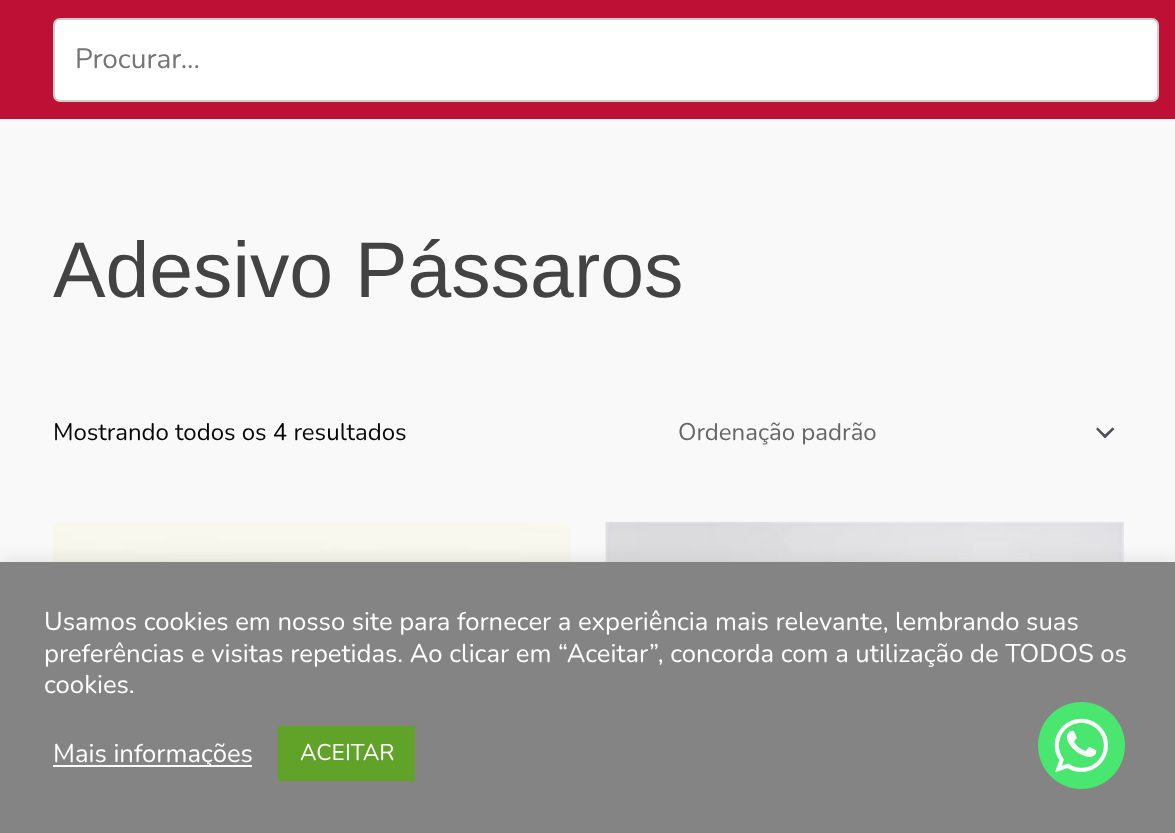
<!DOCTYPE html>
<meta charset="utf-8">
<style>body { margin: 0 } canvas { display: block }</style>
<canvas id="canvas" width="1175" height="833"></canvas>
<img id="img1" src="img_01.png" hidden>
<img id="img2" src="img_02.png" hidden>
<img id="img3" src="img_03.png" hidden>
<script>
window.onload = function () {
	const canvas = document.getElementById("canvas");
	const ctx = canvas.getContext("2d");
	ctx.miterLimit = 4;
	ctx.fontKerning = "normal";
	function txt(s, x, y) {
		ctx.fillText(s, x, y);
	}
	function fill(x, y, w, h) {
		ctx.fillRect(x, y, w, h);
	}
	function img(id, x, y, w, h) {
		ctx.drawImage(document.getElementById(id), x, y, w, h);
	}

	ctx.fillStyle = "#F9F9F9";
	fill(0, 0, 1175, 833);
	ctx.fillStyle = "#BE0F34";
	fill(0, 0, 1175, 119);
	ctx.fillStyle = "#FFFFFF";
	ctx.beginPath();
	ctx.roundRect(54, 19, 1104, 82, 6);
	ctx.fill();
	ctx.strokeStyle = "#CECECE";
	ctx.lineWidth = 2;
	ctx.stroke();
	ctx.fillStyle = "#4B4F58";
	ctx.beginPath();
	ctx.moveTo(1096, 429);
	ctx.lineTo(1105, 438.5);
	ctx.lineTo(1114.5, 429);
	ctx.lineTo(1112.5, 427.5);
	ctx.lineTo(1105, 434.5);
	ctx.lineTo(1097.5, 427.5);
	ctx.closePath();
	ctx.fill();
	img("img1", 53, 522, 518, 40);
	img("img2", 605, 521, 519, 41);
	ctx.fillStyle = "rgba(172, 171, 171, 0.3)";
	ctx.filter = "blur(9px)";
	ctx.beginPath();
	ctx.rect(0, 560, 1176, 271);
	ctx.fill();
	ctx.filter = "none";
	ctx.fillStyle = "#848484";
	fill(0, 562, 1175, 271);
	ctx.fillStyle = "#FFFFFF";
	fill(53, 765, 199, 2);
	ctx.fillStyle = "#61A229";
	fill(278, 726, 137, 55);
	img("img3", 1038, 702, 87, 87);
	ctx.font = "200 28px Nunito";
	ctx.fillStyle = "#757575";
	txt("Procurar...", 75, 68);
	ctx.font = "78.75px Liberation Sans";
	ctx.fillStyle = "#434343";
	txt("Adesivo Pássaros", 53, 297);
	ctx.font = "200 24px Nunito";
	ctx.fillStyle = "#070707";
	txt("Mostrando todos os 4 resultados", 53, 440);
	ctx.fillStyle = "#666666";
	txt("Ordenação padrão", 678, 440);
	ctx.font = "200 25.65px Nunito";
	ctx.fillStyle = "#FFFFFF";
	txt("Usamos cookies em nosso site para fornecer a experiência mais relevante, lembrando suas", 44, 630);
	txt("preferências e visitas repetidas. Ao clicar em “Aceitar”, concorda com a utilização de TODOS os", 44, 662);
	txt("cookies.", 44, 693);
	txt("Mais informações", 53, 762);
	ctx.font = "200 22.75px Nunito";
	txt("ACEITAR", 300, 760);
};
</script>
